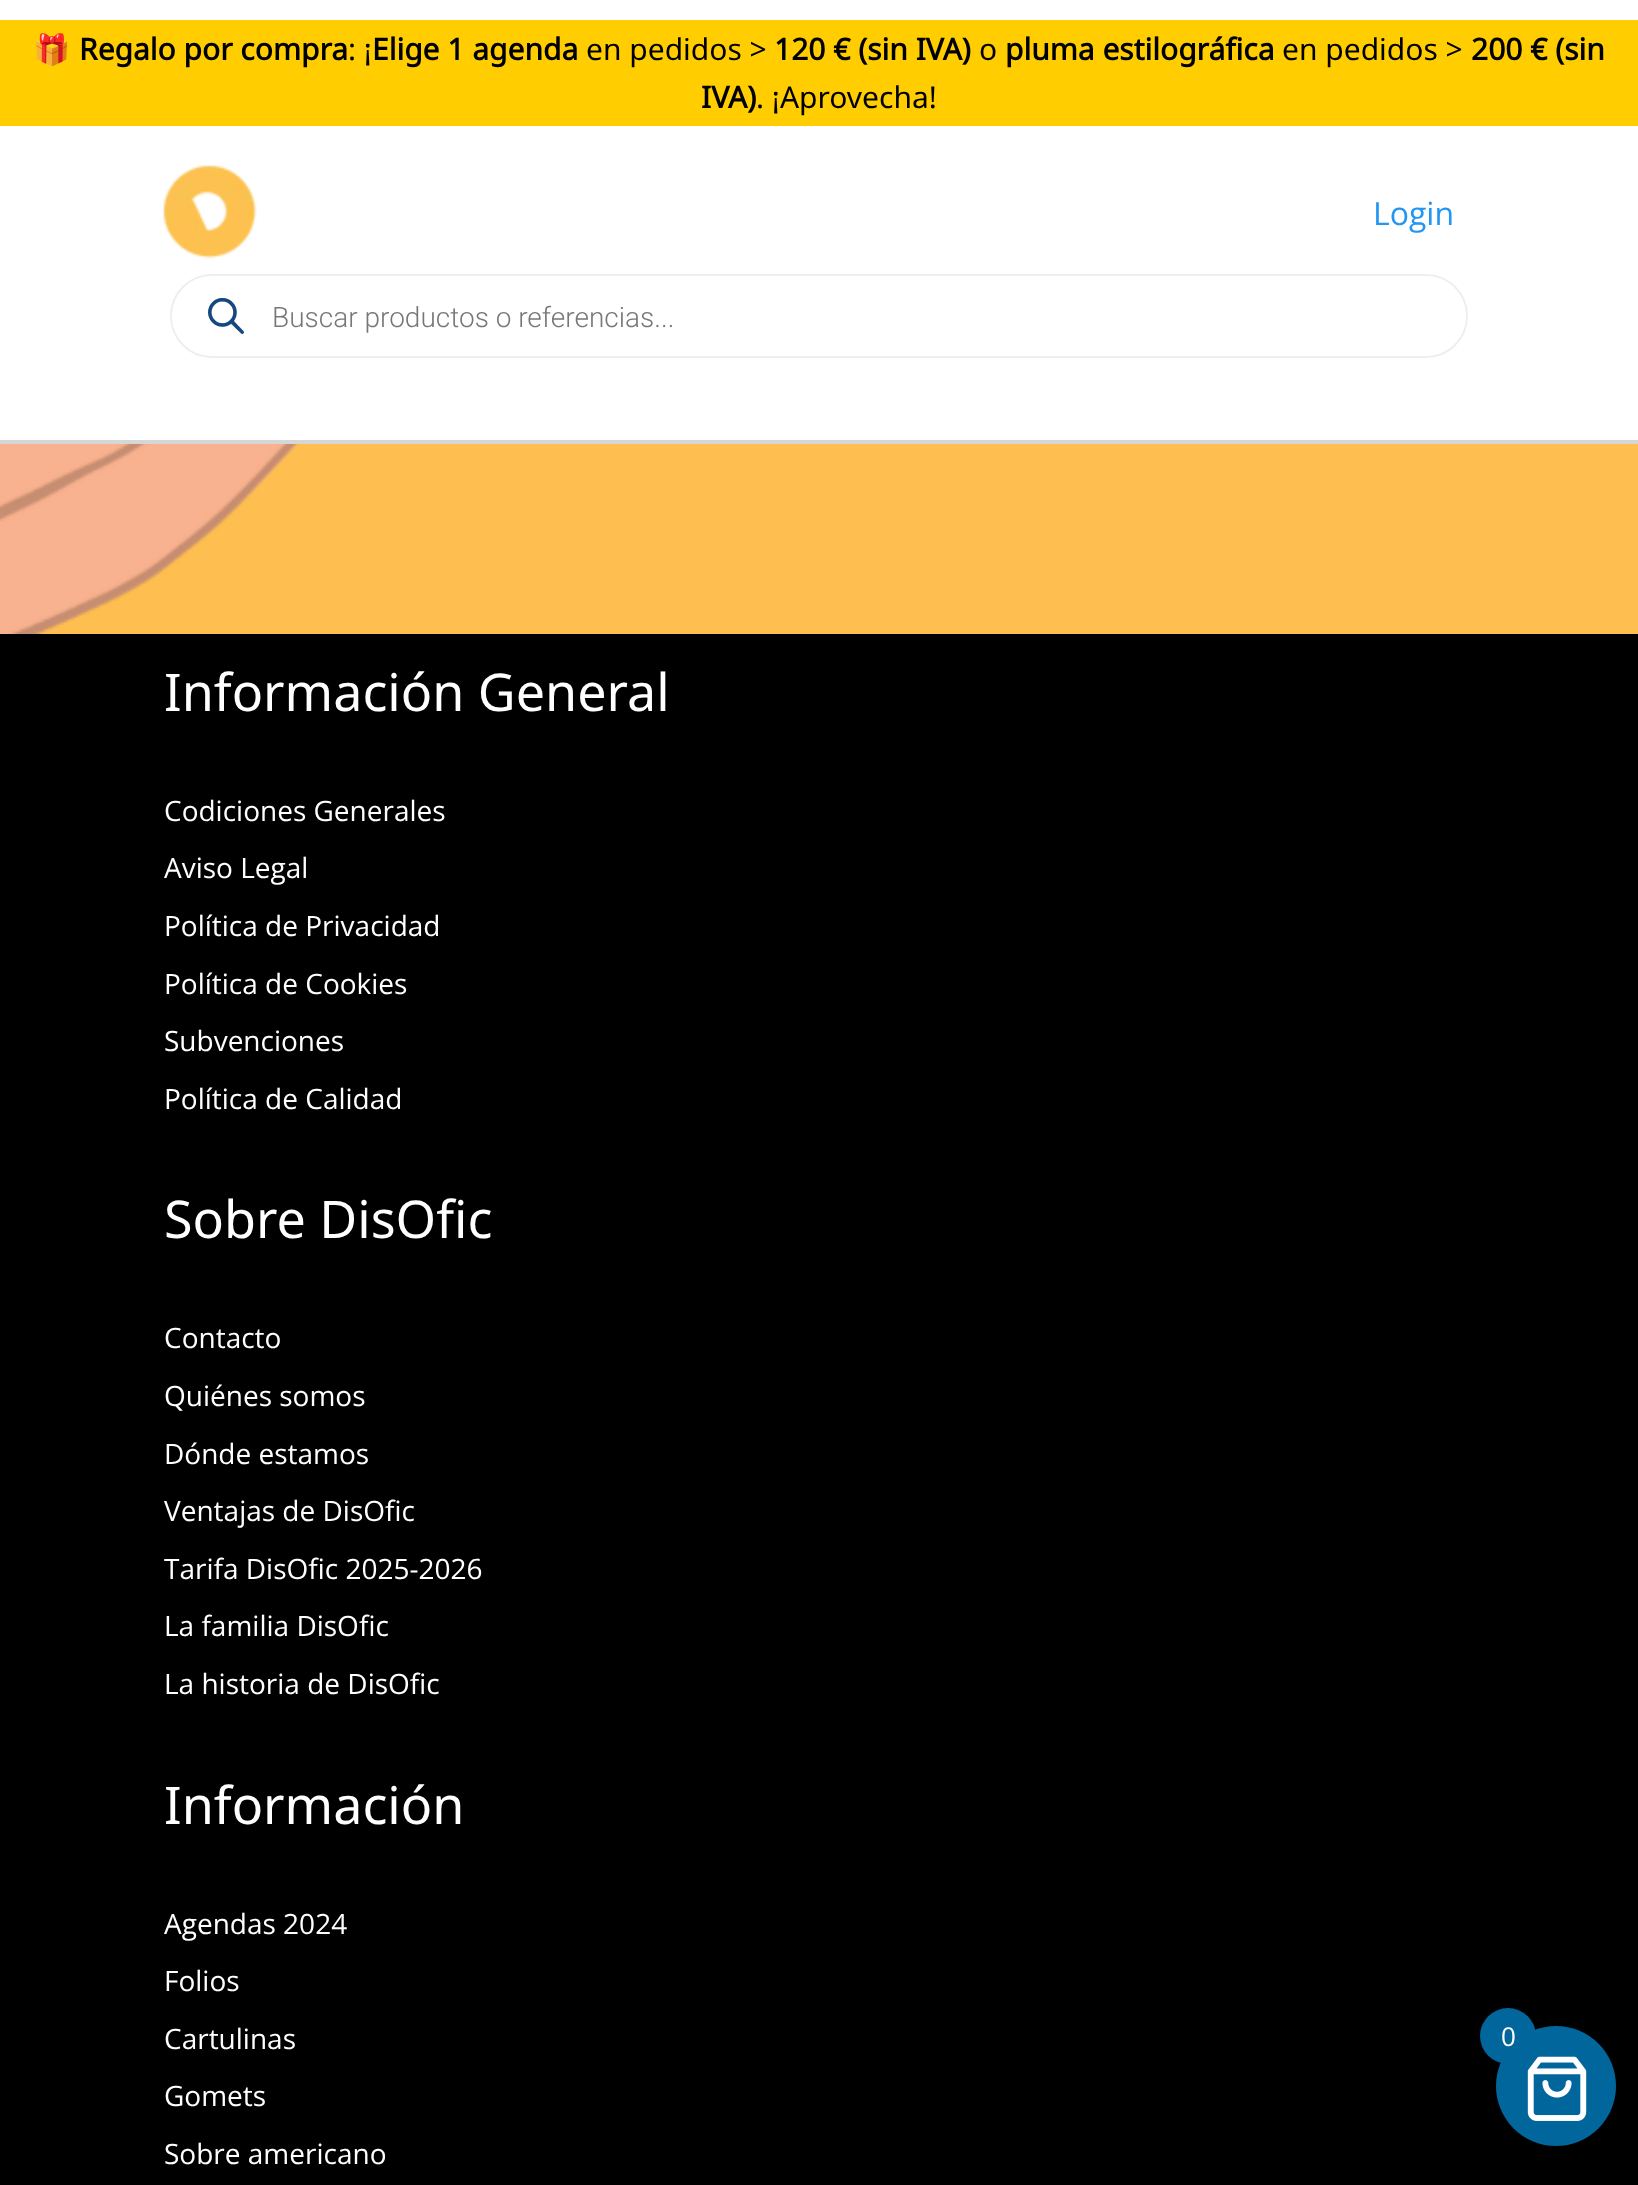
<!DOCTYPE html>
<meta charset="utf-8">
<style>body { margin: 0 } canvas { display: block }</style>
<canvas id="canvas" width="1638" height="2185"></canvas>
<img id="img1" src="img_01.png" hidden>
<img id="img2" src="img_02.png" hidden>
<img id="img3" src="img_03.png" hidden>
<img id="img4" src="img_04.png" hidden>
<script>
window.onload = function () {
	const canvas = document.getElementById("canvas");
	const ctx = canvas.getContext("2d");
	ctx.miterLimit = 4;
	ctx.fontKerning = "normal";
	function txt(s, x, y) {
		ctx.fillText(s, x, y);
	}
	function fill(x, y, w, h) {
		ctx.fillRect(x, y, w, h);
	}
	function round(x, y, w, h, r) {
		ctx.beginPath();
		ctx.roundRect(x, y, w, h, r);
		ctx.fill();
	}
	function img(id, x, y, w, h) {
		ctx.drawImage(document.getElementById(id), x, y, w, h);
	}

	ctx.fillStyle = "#FEBF50";
	fill(0, 0, 1638, 2185);
	ctx.fillStyle = "#FFFFFF";
	fill(0, 0, 1638, 440);
	ctx.fillStyle = "#D6D6D6";
	fill(0, 440, 1638, 4);
	ctx.fillStyle = "#FFCD00";
	fill(0, 20, 1638, 106);
	img("img1", 163, 165, 94, 94);
	ctx.beginPath();
	ctx.roundRect(171, 275, 1296, 82, 41);
	ctx.strokeStyle = "#EEEEEE";
	ctx.lineWidth = 2;
	ctx.stroke();
	ctx.fillStyle = "#FFFFFF";
	round(172, 276, 1294, 80, 40);
	img("img2", 208, 298, 36, 36);
	img("img3", 0, 444, 478, 190);
	ctx.fillStyle = "#000000";
	fill(0, 634, 1638, 1551);
	ctx.fillStyle = "#00669C";
	ctx.beginPath();
	ctx.arc(1556, 2086, 60, 0, Math.PI * 2);
	ctx.fill();
	img("img4", 1527, 2056, 60, 65);
	ctx.beginPath();
	ctx.arc(1508, 2036, 28, 0, Math.PI * 2);
	ctx.fill();
	ctx.font = "30px Noto Color Emoji";
	ctx.fillStyle = "#000000";
	txt("🎁", 33, 60);
	ctx.font = "bold 30px Noto Sans Mongolian";
	txt("Regalo por compra", 79, 60);
	ctx.font = "30px Noto Sans Mongolian";
	txt(": ¡", 348, 60);
	ctx.font = "bold 30px Noto Sans Mongolian";
	txt("Elige 1 agenda", 372, 60);
	ctx.font = "30px Noto Sans Mongolian";
	txt("en pedidos >", 586, 60);
	ctx.font = "bold 30px Noto Sans Mongolian";
	txt("120 € (sin IVA)", 774, 60);
	ctx.font = "30px Noto Sans Mongolian";
	txt("o", 979, 60);
	ctx.font = "bold 30px Noto Sans Mongolian";
	txt("pluma estilográfica", 1005, 60);
	ctx.font = "30px Noto Sans Mongolian";
	txt("en pedidos >", 1282, 60);
	ctx.font = "bold 30px Noto Sans Mongolian";
	txt("200 € (sin", 1471, 60);
	txt("IVA)", 701, 108);
	ctx.font = "30px Noto Sans Mongolian";
	txt(". ¡Aprovecha!", 756, 108);
	ctx.font = "32px Open Sans";
	ctx.fillStyle = "#2196F3";
	txt("Login", 1373, 225);
	ctx.font = "300 28px Roboto";
	ctx.fillStyle = "#777777";
	txt("Buscar productos o referencias...", 272, 327);
	ctx.font = "52px Noto Sans Mongolian";
	ctx.fillStyle = "#FFFFFF";
	txt("Información General", 164, 711);
	ctx.font = "28px Open Sans";
	txt("Codiciones Generales", 164, 821);
	txt("Aviso Legal", 164, 878);
	txt("Política de Privacidad", 164, 936);
	txt("Política de Cookies", 164, 994);
	txt("Subvenciones", 164, 1051);
	txt("Política de Calidad", 164, 1109);
	ctx.font = "52px Noto Sans Mongolian";
	txt("Sobre DisOfic", 164, 1238);
	ctx.font = "28px Open Sans";
	txt("Contacto", 164, 1348);
	txt("Quiénes somos", 164, 1406);
	txt("Dónde estamos", 164, 1464);
	txt("Ventajas de DisOfic", 164, 1521);
	txt("Tarifa DisOfic 2025-2026", 164, 1579);
	txt("La familia DisOfic", 164, 1636);
	txt("La historia de DisOfic", 164, 1694);
	ctx.font = "52px Noto Sans Mongolian";
	txt("Información", 164, 1824);
	ctx.font = "28px Open Sans";
	txt("Agendas 2024", 164, 1934);
	txt("Folios", 164, 1991);
	txt("Cartulinas", 164, 2049);
	txt("Gomets", 164, 2106);
	txt("Sobre americano", 164, 2164);
	ctx.font = "26px Open Sans";
	txt("0", 1501, 2046);
};
</script>
